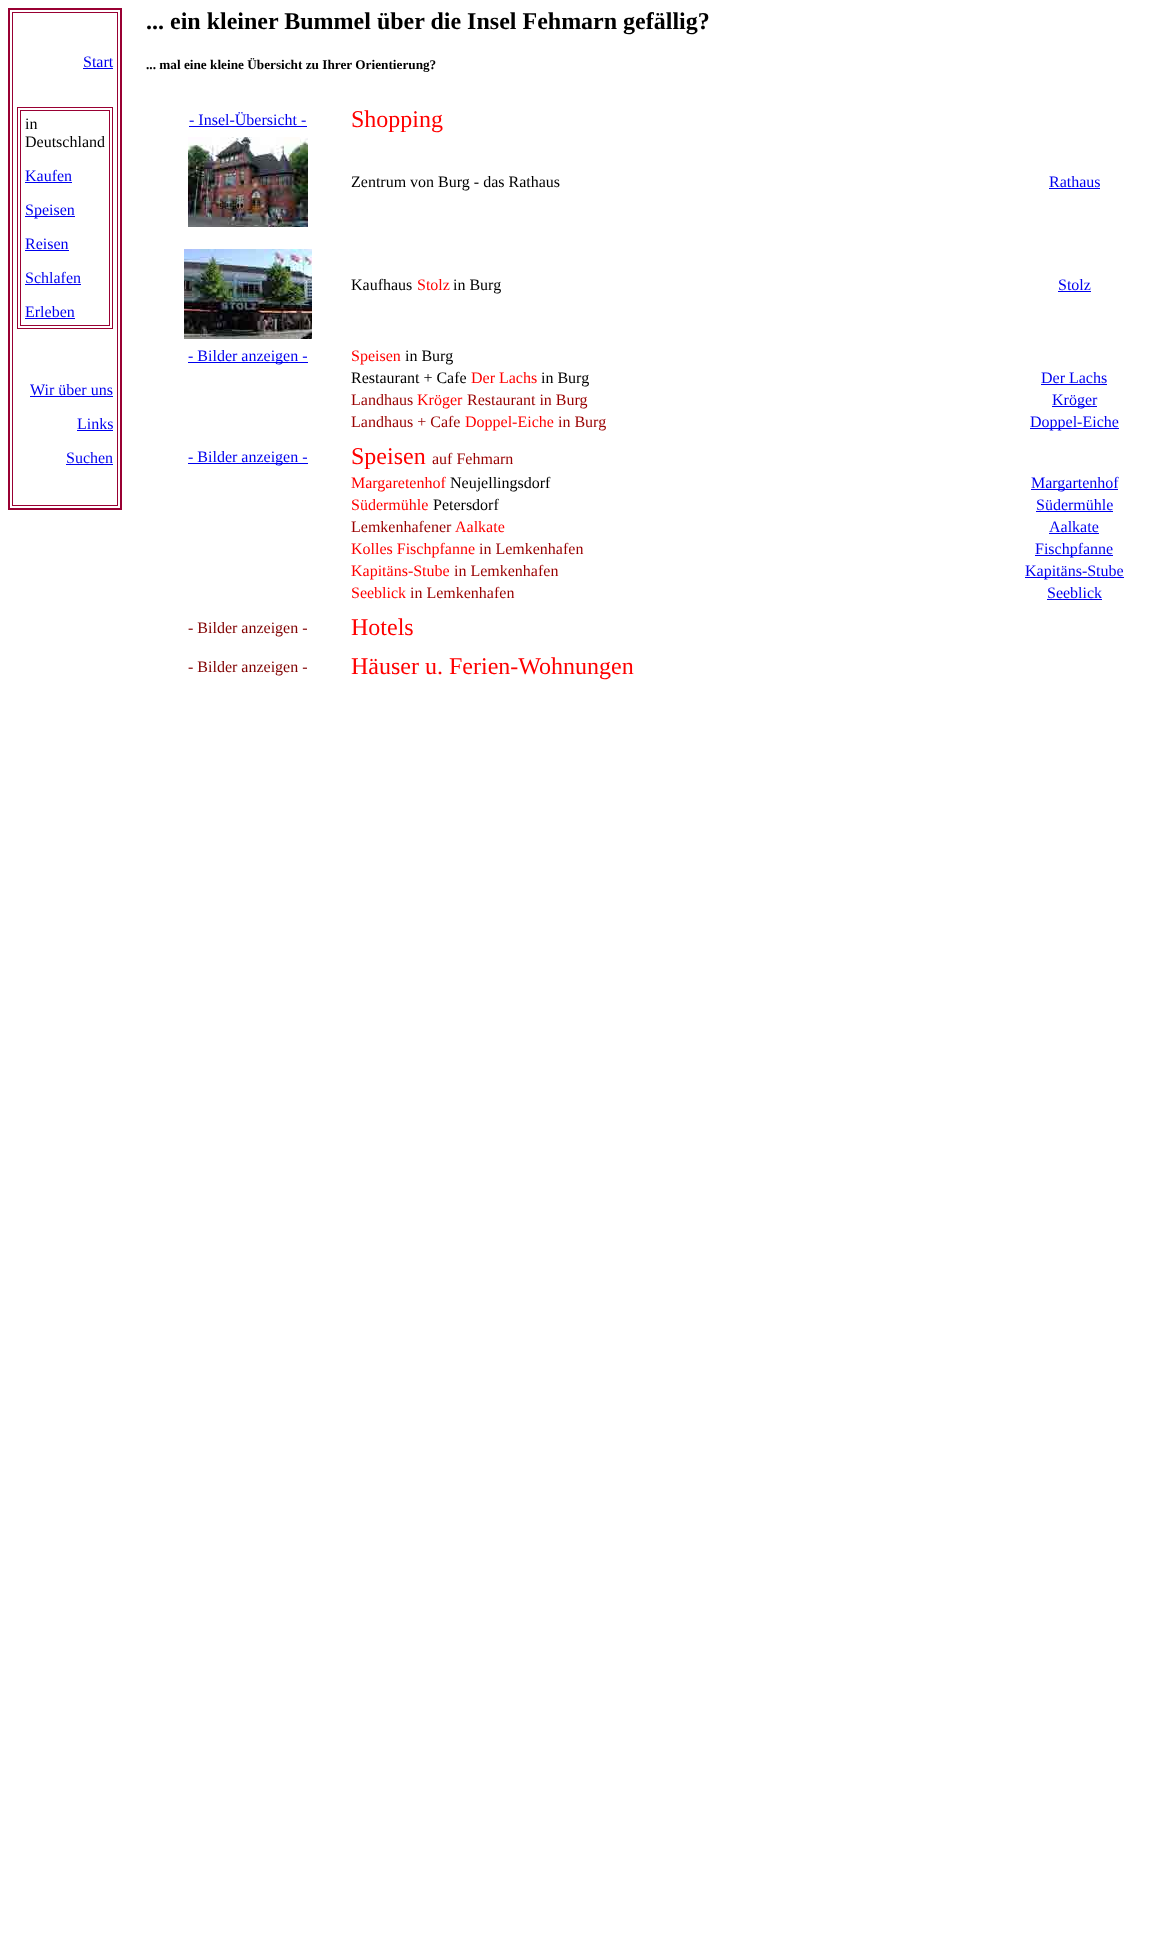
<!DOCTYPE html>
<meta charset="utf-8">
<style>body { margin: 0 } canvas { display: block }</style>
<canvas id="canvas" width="1175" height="1943"></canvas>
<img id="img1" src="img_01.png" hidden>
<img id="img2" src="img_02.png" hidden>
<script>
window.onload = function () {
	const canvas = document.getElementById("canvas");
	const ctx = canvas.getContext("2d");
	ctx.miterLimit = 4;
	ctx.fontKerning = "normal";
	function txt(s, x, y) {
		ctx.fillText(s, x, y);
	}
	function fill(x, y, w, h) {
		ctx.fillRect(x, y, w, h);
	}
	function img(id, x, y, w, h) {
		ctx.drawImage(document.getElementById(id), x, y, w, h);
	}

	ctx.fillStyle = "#FFFFFF";
	fill(0, 0, 1175, 1943);
	ctx.strokeStyle = "#990033";
	ctx.lineWidth = 2;
	ctx.strokeRect(9, 9, 112, 500);
	ctx.lineWidth = 1;
	ctx.strokeRect(12.5, 12.5, 105, 493);
	ctx.fillStyle = "#0000EE";
	fill(83, 68, 30, 1);
	ctx.strokeRect(17.5, 107.5, 95, 221);
	ctx.strokeRect(20.5, 110.5, 89, 215);
	fill(25, 182, 47, 1);
	fill(25, 216, 50, 1);
	fill(25, 250, 44, 1);
	fill(25, 284, 56, 1);
	fill(25, 318, 50, 1);
	fill(30, 396, 83, 1);
	fill(77, 430, 36, 1);
	fill(66, 464, 47, 1);
	fill(189, 126, 118, 1);
	img("img1", 188, 137, 120, 90);
	fill(1049, 188, 51, 1);
	img("img2", 184, 249, 128, 90);
	fill(1058, 291, 33, 1);
	fill(188, 362, 120, 1);
	fill(1041, 384, 66, 1);
	fill(1052, 406, 45, 1);
	fill(1030, 428, 89, 1);
	fill(188, 463, 120, 1);
	fill(1031, 489, 87, 1);
	fill(1036, 511, 77, 1);
	fill(1049, 533, 50, 1);
	fill(1035, 555, 78, 1);
	fill(1025, 577, 99, 1);
	fill(1047, 599, 55, 1);
	ctx.font = "16px Liberation Serif";
	txt("Start", 83, 67);
	ctx.fillStyle = "#000000";
	txt("in", 25, 129);
	txt("Deutschland", 25, 147);
	ctx.fillStyle = "#0000EE";
	txt("Kaufen", 25, 181);
	txt("Speisen", 25, 215);
	txt("Reisen", 25, 249);
	txt("Schlafen", 25, 283);
	txt("Erleben", 25, 317);
	txt("Wir über uns", 30, 395);
	txt("Links", 77, 429);
	txt("Suchen", 66, 463);
	ctx.font = "bold 24px Liberation Serif";
	ctx.fillStyle = "#000000";
	txt("... ein kleiner Bummel über die Insel Fehmarn gefällig?", 146, 29);
	ctx.font = "bold 13.25px Liberation Serif";
	txt("... mal eine kleine Übersicht zu Ihrer Orientierung?", 146, 69);
	ctx.font = "16px Liberation Serif";
	ctx.fillStyle = "#0000EE";
	txt("- Insel-Übersicht -", 189, 125);
	ctx.font = "24px Liberation Serif";
	ctx.fillStyle = "#FF0000";
	txt("Shopping", 351, 127);
	ctx.font = "16px Liberation Serif";
	ctx.fillStyle = "#000000";
	txt("Zentrum von Burg - das Rathaus", 351, 187);
	ctx.fillStyle = "#0000EE";
	txt("Rathaus", 1049, 187);
	ctx.fillStyle = "#000000";
	txt("Kaufhaus", 351, 290);
	ctx.fillStyle = "#FF0000";
	txt("Stolz", 417, 290);
	ctx.fillStyle = "#000000";
	txt("in Burg", 453, 290);
	ctx.fillStyle = "#0000EE";
	txt("Stolz", 1058, 290);
	txt("- Bilder anzeigen -", 188, 361);
	ctx.fillStyle = "#FF0000";
	txt("Speisen", 351, 361);
	ctx.fillStyle = "#000000";
	txt("in Burg", 405, 361);
	txt("Restaurant + Cafe", 351, 383);
	ctx.fillStyle = "#FF0000";
	txt("Der Lachs", 471, 383);
	ctx.fillStyle = "#000000";
	txt("in Burg", 541, 383);
	ctx.fillStyle = "#0000EE";
	txt("Der Lachs", 1041, 383);
	ctx.fillStyle = "#990000";
	txt("Landhaus", 351, 405);
	ctx.fillStyle = "#FF0000";
	txt("Kröger", 417, 405);
	ctx.fillStyle = "#990000";
	txt("Restaurant in Burg", 467, 405);
	ctx.fillStyle = "#0000EE";
	txt("Kröger", 1052, 405);
	ctx.fillStyle = "#990000";
	txt("Landhaus + Cafe", 351, 427);
	ctx.fillStyle = "#FF0000";
	txt("Doppel-Eiche", 465, 427);
	ctx.fillStyle = "#990000";
	txt("in Burg", 558, 427);
	ctx.fillStyle = "#0000EE";
	txt("Doppel-Eiche", 1030, 427);
	txt("- Bilder anzeigen -", 188, 462);
	ctx.font = "24px Liberation Serif";
	ctx.fillStyle = "#FF0000";
	txt("Speisen", 351, 464);
	ctx.font = "16px Liberation Serif";
	ctx.fillStyle = "#990000";
	txt("auf Fehmarn", 432, 464);
	ctx.fillStyle = "#FF0000";
	txt("Margaretenhof", 351, 488);
	ctx.fillStyle = "#000000";
	txt("Neujellingsdorf", 450, 488);
	ctx.fillStyle = "#0000EE";
	txt("Margartenhof", 1031, 488);
	ctx.fillStyle = "#FF0000";
	txt("Südermühle", 351, 510);
	ctx.fillStyle = "#000000";
	txt("Petersdorf", 433, 510);
	ctx.fillStyle = "#0000EE";
	txt("Südermühle", 1036, 510);
	ctx.fillStyle = "#990000";
	txt("Lemkenhafener", 351, 532);
	ctx.fillStyle = "#FF0000";
	txt("Aalkate", 455, 532);
	ctx.fillStyle = "#0000EE";
	txt("Aalkate", 1049, 532);
	ctx.fillStyle = "#FF0000";
	txt("Kolles Fischpfanne", 351, 554);
	ctx.fillStyle = "#990000";
	txt("in Lemkenhafen", 479, 554);
	ctx.fillStyle = "#0000EE";
	txt("Fischpfanne", 1035, 554);
	ctx.fillStyle = "#FF0000";
	txt("Kapitäns-Stube", 351, 576);
	ctx.fillStyle = "#990000";
	txt("in Lemkenhafen", 454, 576);
	ctx.fillStyle = "#0000EE";
	txt("Kapitäns-Stube", 1025, 576);
	ctx.fillStyle = "#FF0000";
	txt("Seeblick", 351, 598);
	ctx.fillStyle = "#990000";
	txt("in Lemkenhafen", 410, 598);
	ctx.fillStyle = "#0000EE";
	txt("Seeblick", 1047, 598);
	ctx.fillStyle = "#800000";
	txt("- Bilder anzeigen -", 188, 633);
	ctx.font = "24px Liberation Serif";
	ctx.fillStyle = "#FF0000";
	txt("Hotels", 351, 635);
	ctx.font = "16px Liberation Serif";
	ctx.fillStyle = "#800000";
	txt("- Bilder anzeigen -", 188, 672);
	ctx.font = "24px Liberation Serif";
	ctx.fillStyle = "#FF0000";
	txt("Häuser u. Ferien-Wohnungen", 351, 674);
};
</script>
